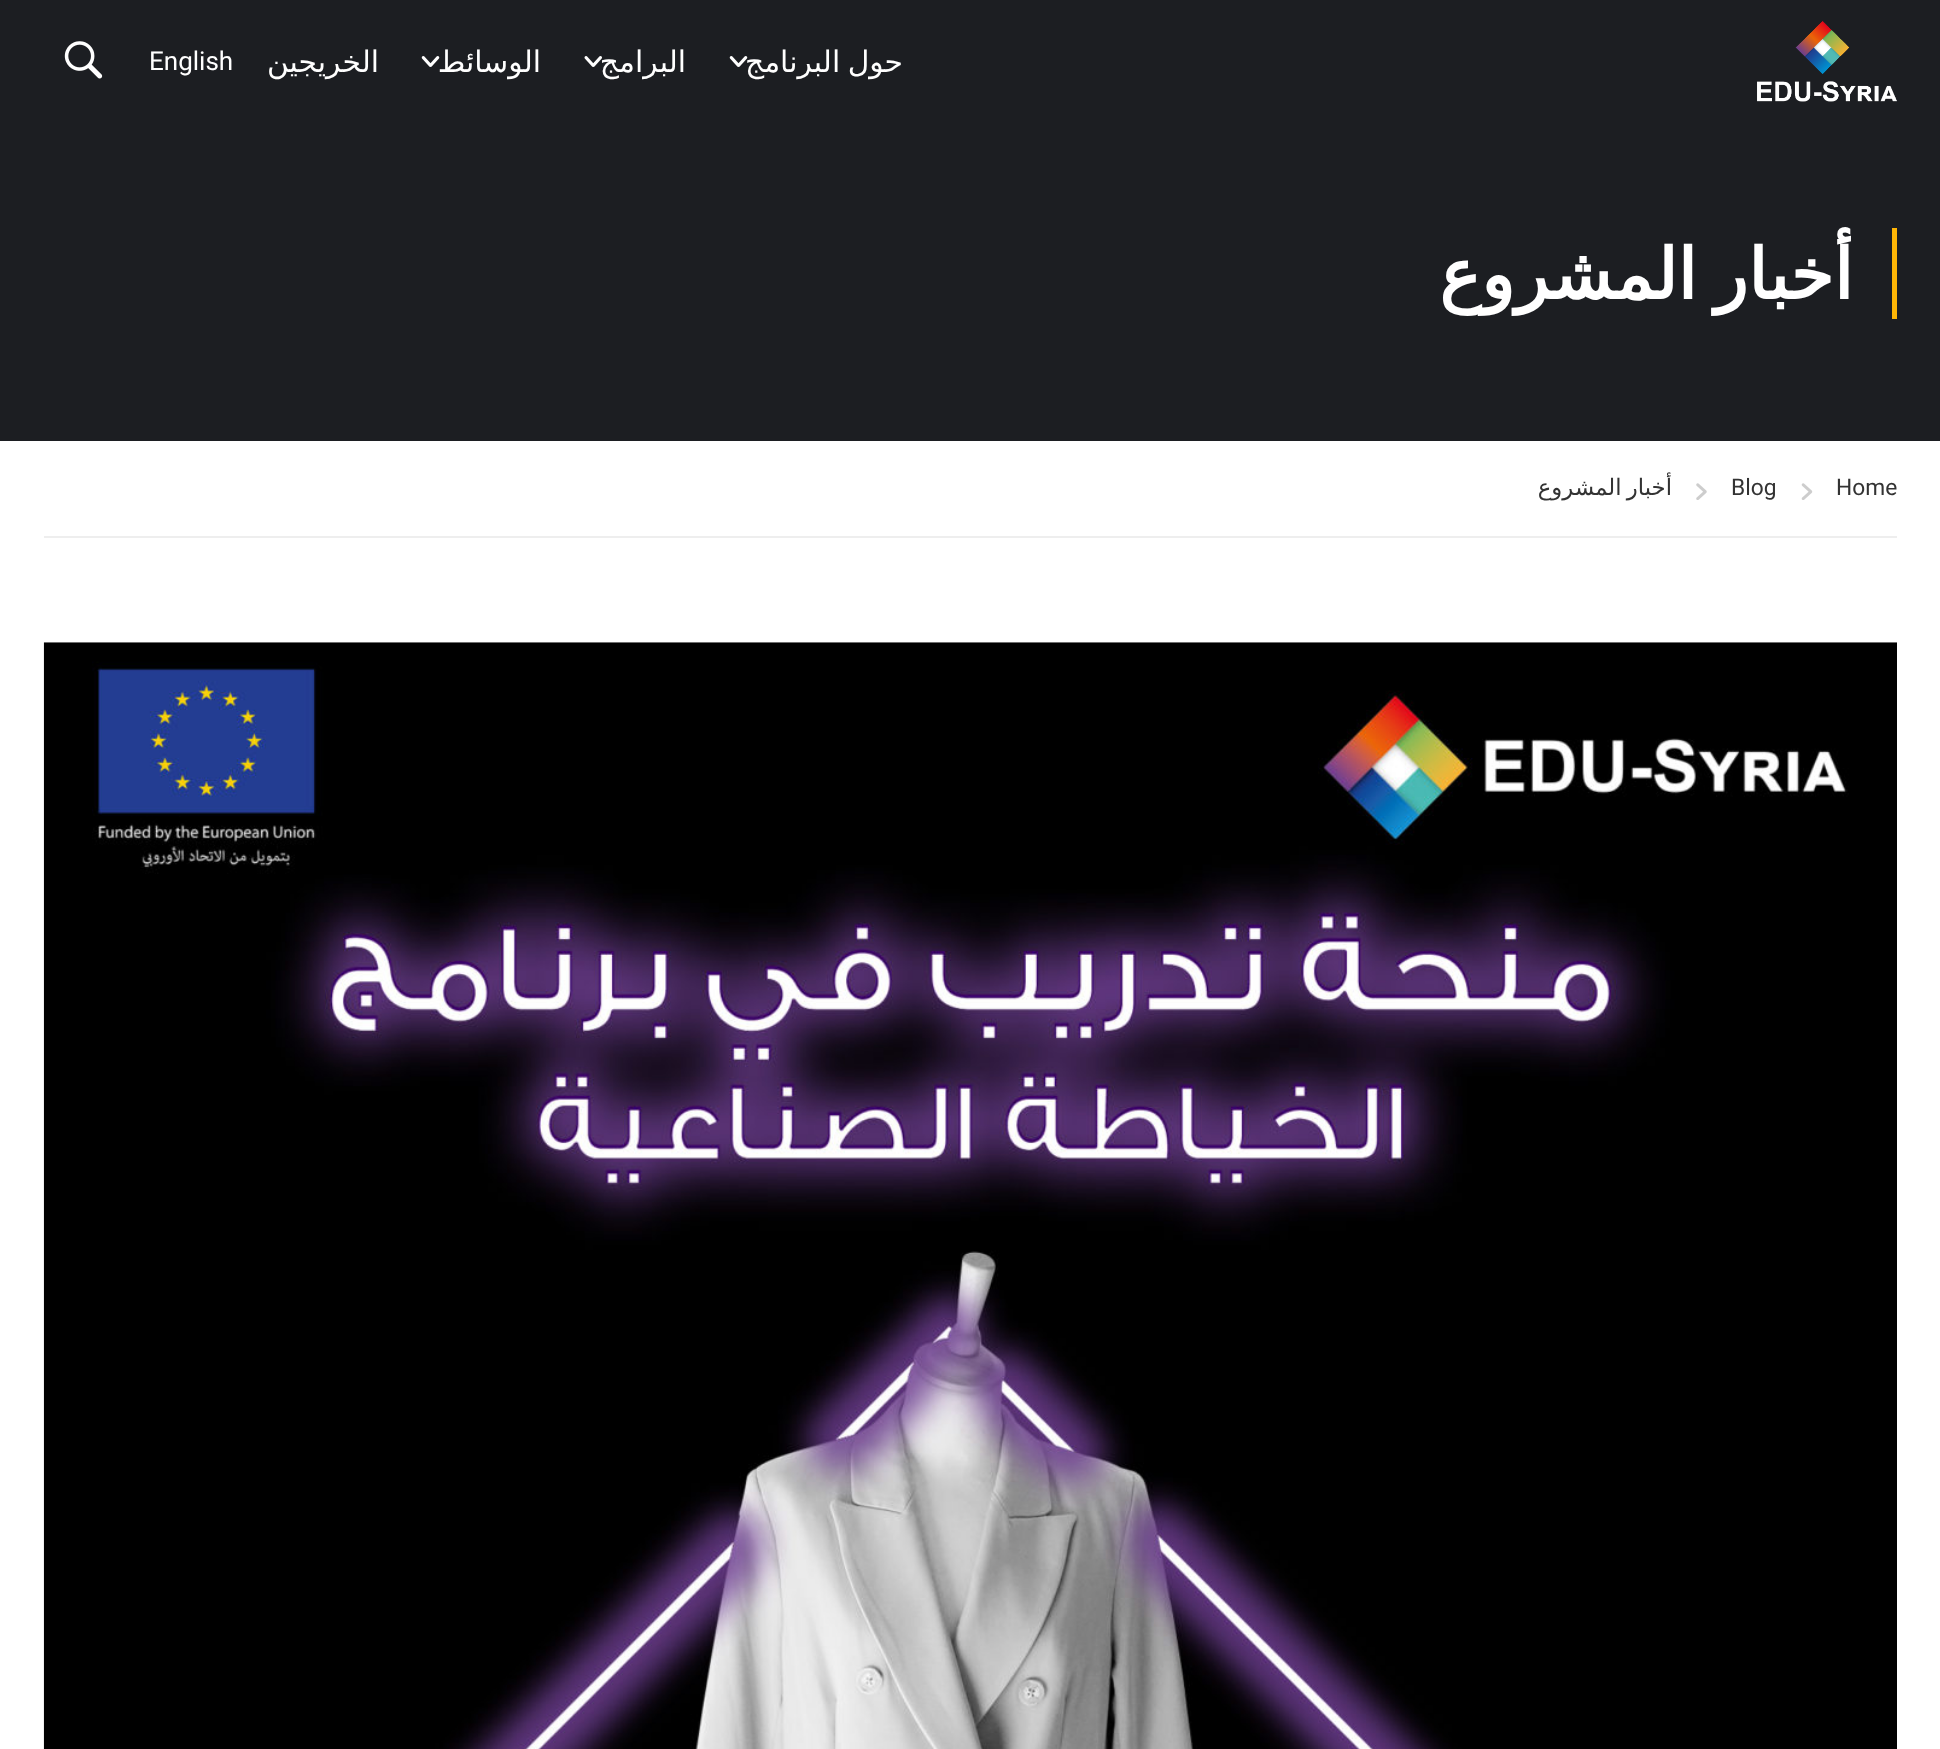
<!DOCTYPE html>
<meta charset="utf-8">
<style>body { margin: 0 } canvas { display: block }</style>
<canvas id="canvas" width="1940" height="1749"></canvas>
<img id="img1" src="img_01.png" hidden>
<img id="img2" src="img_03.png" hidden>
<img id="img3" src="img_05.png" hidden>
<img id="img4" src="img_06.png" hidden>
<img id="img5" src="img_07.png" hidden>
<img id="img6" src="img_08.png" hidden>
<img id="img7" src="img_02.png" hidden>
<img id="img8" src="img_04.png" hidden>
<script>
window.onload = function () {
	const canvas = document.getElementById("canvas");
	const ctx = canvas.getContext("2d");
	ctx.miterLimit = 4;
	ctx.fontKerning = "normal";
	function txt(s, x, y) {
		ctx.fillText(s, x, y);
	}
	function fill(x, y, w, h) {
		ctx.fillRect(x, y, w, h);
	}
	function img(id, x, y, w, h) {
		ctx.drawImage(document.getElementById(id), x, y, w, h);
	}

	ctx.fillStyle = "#FFFFFF";
	fill(0, 0, 1940, 1749);
	ctx.fillStyle = "#1C1E22";
	fill(0, 0, 1940, 441);
	img("img1", 1757, 21, 140, 81);
	img("img2", 584, 56, 18, 11);
	img("img3", 64, 41, 39, 38);
	ctx.fillStyle = "#FFB606";
	fill(1892, 228, 5, 91);
	ctx.fillStyle = "#EEEEEE";
	fill(44, 536, 1853, 2);
	img("img4", 1801, 483, 12, 17);
	img("img5", 1696, 483, 11, 17);
	img("img6", 43, 642, 1854, 1107);
	ctx.wordSpacing = "-2px";
	ctx.direction = "rtl";
	ctx.font = "29.75px DejaVu Sans";
	ctx.fillStyle = "#FFFFFF";
	txt("حول البرنامج", 903, 72);
	img("img7", 729, 56, 19, 11);
	ctx.wordSpacing = "0px";
	txt("البرامج", 686, 72);
	txt("الوسائط", 541, 72);
	img("img8", 421, 56, 19, 11);
	txt("الخريجين", 379, 72);
	ctx.direction = "ltr";
	ctx.font = "26px Roboto";
	txt("English", 149, 70);
	ctx.wordSpacing = "-5px";
	ctx.direction = "rtl";
	ctx.font = "bold 70px DejaVu Sans";
	txt("أخبار المشروع", 1853, 299);
	ctx.wordSpacing = "0px";
	ctx.direction = "ltr";
	ctx.font = "22.75px Roboto";
	ctx.fillStyle = "#333333";
	txt("Home", 1836, 495);
	txt("Blog", 1731, 495);
	ctx.wordSpacing = "-2px";
	ctx.direction = "rtl";
	ctx.font = "22.75px DejaVu Sans";
	txt("أخبار المشروع", 1672, 495);
};
</script>
